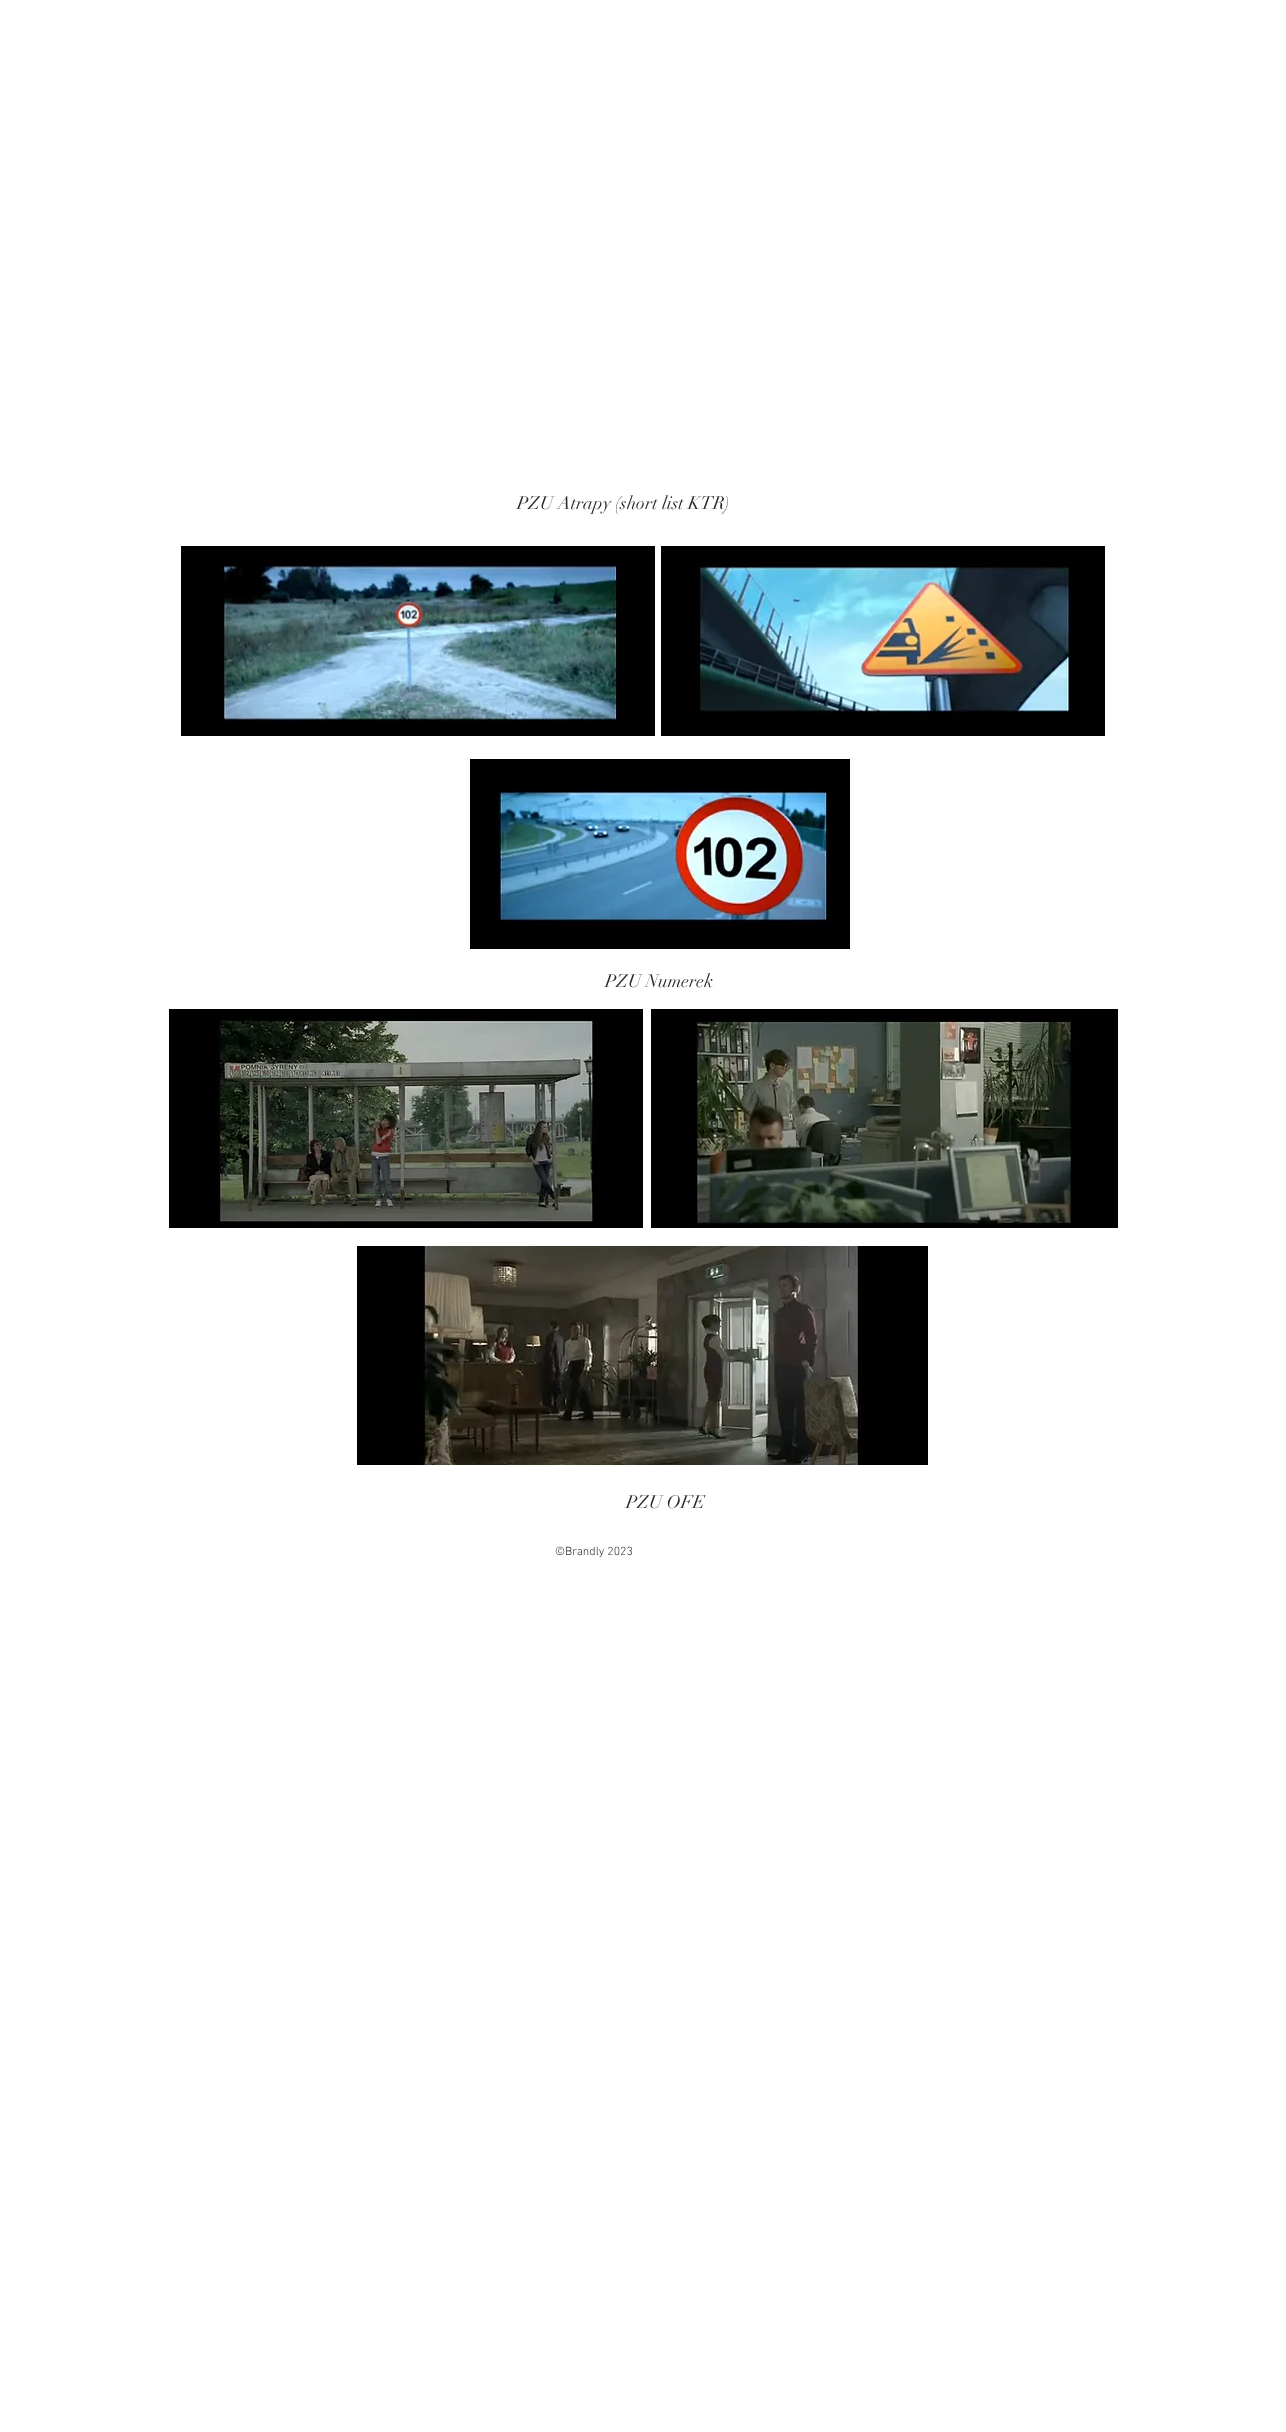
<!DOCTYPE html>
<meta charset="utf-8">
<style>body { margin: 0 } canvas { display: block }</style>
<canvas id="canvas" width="1286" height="2432"></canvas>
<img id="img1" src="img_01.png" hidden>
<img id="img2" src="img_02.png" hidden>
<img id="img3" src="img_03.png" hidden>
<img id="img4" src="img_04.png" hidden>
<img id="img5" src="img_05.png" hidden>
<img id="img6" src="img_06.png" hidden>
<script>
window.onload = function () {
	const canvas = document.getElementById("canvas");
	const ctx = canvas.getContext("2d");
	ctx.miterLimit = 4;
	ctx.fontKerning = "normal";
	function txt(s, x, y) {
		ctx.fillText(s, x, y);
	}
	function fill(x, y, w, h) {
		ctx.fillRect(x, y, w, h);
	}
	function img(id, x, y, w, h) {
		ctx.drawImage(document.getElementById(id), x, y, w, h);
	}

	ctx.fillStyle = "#FFFFFF";
	fill(0, 0, 1286, 2432);
	img("img1", 181, 546, 474, 190);
	img("img2", 661, 546, 444, 190);
	img("img3", 470, 759, 380, 190);
	img("img4", 169, 1009, 474, 219);
	img("img5", 651, 1009, 467, 219);
	img("img6", 357, 1246, 571, 219);
	ctx.font = "18px didot";
	ctx.fillStyle = "#2A2A2A";
	txt("PZU Atrapy (short list KTR)", 517, 509);
	txt("PZU Numerek", 605, 987);
	txt("PZU OFE", 626, 1508);
	ctx.font = "300 12px 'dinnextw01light'";
	txt("©Brandly 2023", 555, 1555);
};
</script>
